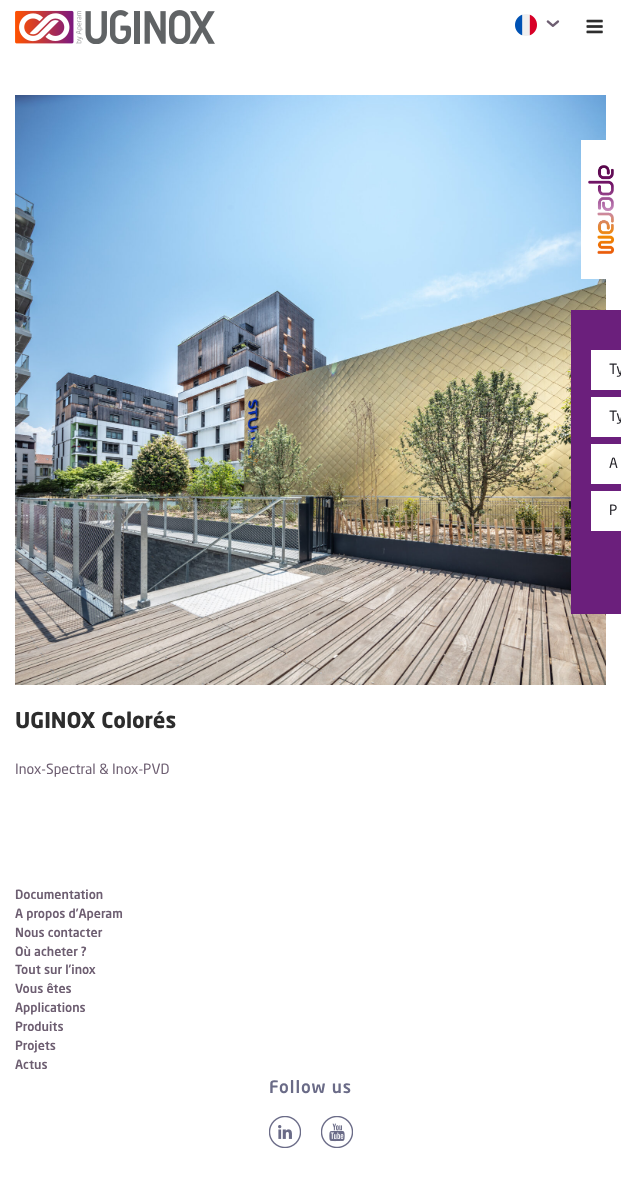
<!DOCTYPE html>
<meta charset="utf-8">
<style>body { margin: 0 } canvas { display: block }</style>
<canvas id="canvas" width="621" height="1184"></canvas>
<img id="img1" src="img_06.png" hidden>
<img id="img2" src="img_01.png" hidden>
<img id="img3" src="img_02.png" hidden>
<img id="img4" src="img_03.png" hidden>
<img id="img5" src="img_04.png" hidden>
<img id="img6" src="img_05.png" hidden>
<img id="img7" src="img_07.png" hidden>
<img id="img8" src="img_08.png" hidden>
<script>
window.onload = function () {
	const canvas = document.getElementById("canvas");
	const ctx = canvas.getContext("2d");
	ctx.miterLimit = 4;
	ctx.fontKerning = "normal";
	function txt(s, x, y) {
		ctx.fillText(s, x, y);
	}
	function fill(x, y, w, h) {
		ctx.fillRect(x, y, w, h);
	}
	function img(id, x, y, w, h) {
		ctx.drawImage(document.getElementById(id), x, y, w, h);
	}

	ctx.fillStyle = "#FFFFFF";
	fill(0, 0, 621, 1184);
	img("img1", 15, 95, 591, 590);
	fill(581, 140, 25, 139);
	img("img2", 588, 165, 26, 89);
	ctx.fillStyle = "#6B1F7C";
	fill(571, 310, 50, 304);
	ctx.fillStyle = "#FFFFFF";
	fill(591, 350, 30, 40);
	fill(591, 397, 30, 40);
	fill(591, 444, 30, 40);
	fill(591, 491, 30, 40);
	img("img3", 15, 10, 200, 34);
	img("img4", 515, 14, 22, 22);
	img("img5", 546, 20, 14, 7);
	img("img6", 586, 19, 17, 15);
	img("img7", 269, 1116, 32, 32);
	img("img8", 321, 1116, 32, 32);
	ctx.font = "14px 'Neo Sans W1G'";
	ctx.fillStyle = "#201F25";
	txt("Ty", 609, 374);
	txt("Ty", 609, 421);
	txt("A", 609, 468);
	txt("P", 609, 515);
	ctx.font = "bold 21.5px 'Neo Sans W1G'";
	ctx.fillStyle = "#2D2D2D";
	txt("UGINOX Colorés", 15, 728);
	ctx.font = "14px 'Neo Sans W1G'";
	ctx.fillStyle = "#6D5E71";
	txt("Inox-Spectral & Inox-PVD", 15, 774);
	ctx.font = "500 12.5px 'Neo Sans W1G'";
	txt("Documentation", 15, 899);
	txt("A propos d’Aperam", 15, 918);
	txt("Nous contacter", 15, 937);
	txt("Où acheter ?", 15, 956);
	txt("Tout sur l’inox", 15, 974);
	txt("Vous êtes", 15, 993);
	txt("Applications", 15, 1012);
	txt("Produits", 15, 1031);
	txt("Projets", 15, 1050);
	txt("Actus", 15, 1069);
	ctx.letterSpacing = "1px";
	ctx.font = "500 17px 'Neo Sans W1G'";
	ctx.fillStyle = "#6A6B87";
	txt("Follow us", 269, 1093);
};
</script>
